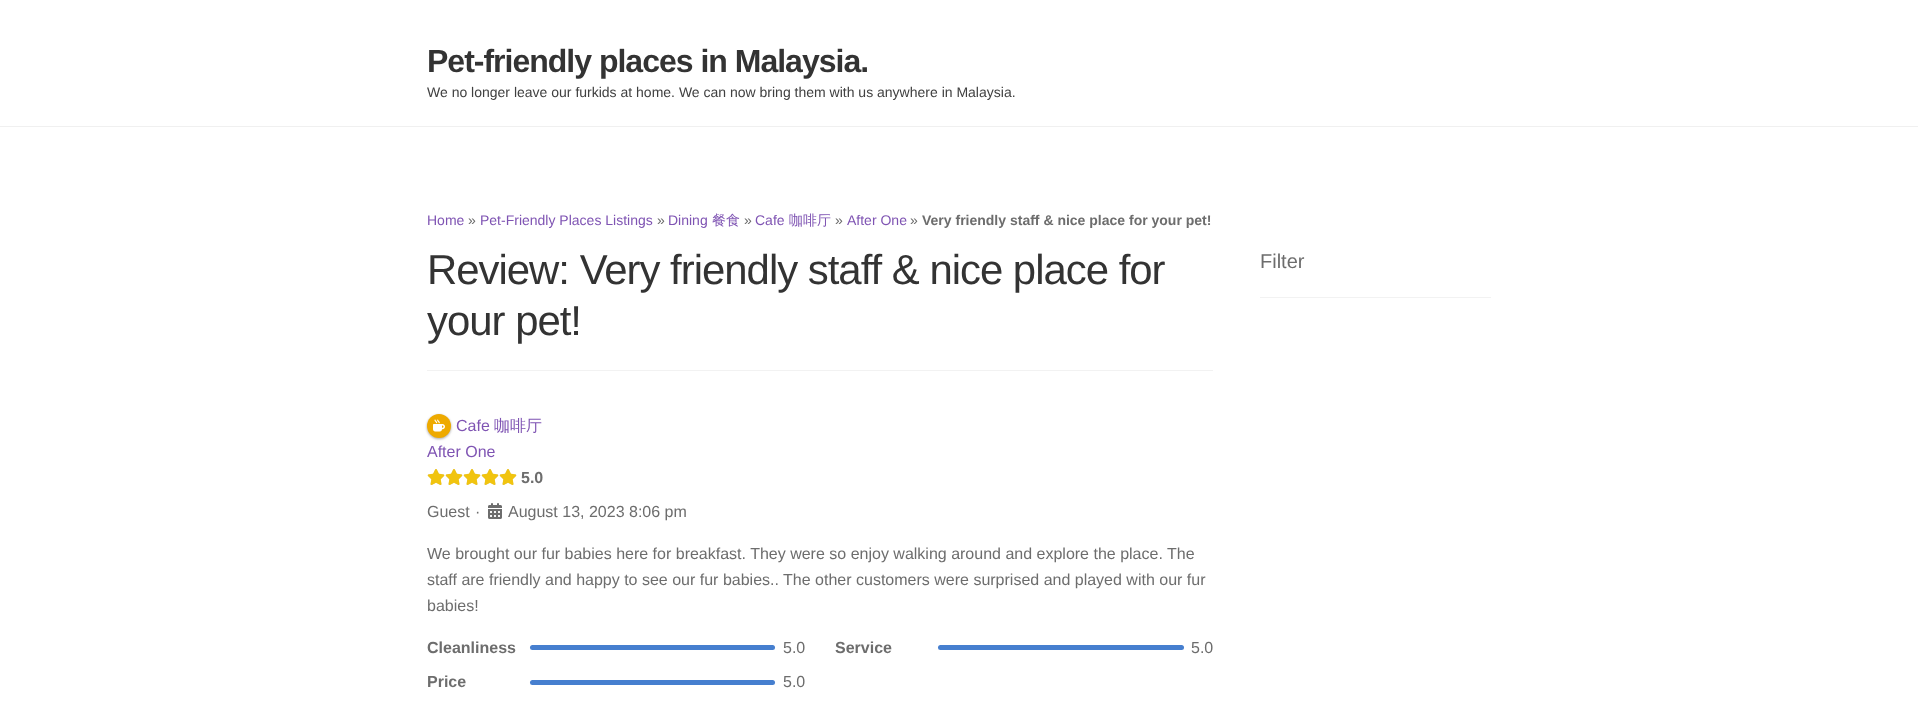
<!DOCTYPE html>
<meta charset="utf-8">
<style>body { margin: 0 } canvas { display: block }</style>
<canvas id="canvas" width="1918" height="717"></canvas>
<img id="img1" src="img_01.png" hidden>
<img id="img2" src="img_02.png" hidden>
<img id="img3" src="img_03.png" hidden>
<img id="img4" src="img_04.png" hidden>
<script>
window.onload = function () {
	const canvas = document.getElementById("canvas");
	const ctx = canvas.getContext("2d");
	ctx.miterLimit = 4;
	ctx.fontKerning = "normal";
	function txt(s, x, y) {
		ctx.fillText(s, x, y);
	}
	function fill(x, y, w, h) {
		ctx.fillRect(x, y, w, h);
	}
	function round(x, y, w, h, r) {
		ctx.beginPath();
		ctx.roundRect(x, y, w, h, r);
		ctx.fill();
	}
	function img(id, x, y, w, h) {
		ctx.drawImage(document.getElementById(id), x, y, w, h);
	}

	ctx.fillStyle = "#FFFFFF";
	fill(0, 0, 1918, 717);
	ctx.fillStyle = "#F0F0F0";
	fill(0, 126, 1918, 1);
	ctx.fillStyle = "#F2F2F2";
	fill(427, 370, 786, 1);
	ctx.fillStyle = "rgba(0, 0, 0, 0.24)";
	ctx.filter = "blur(1px)";
	ctx.beginPath();
	ctx.roundRect(427, 415, 24, 24, 12);
	ctx.fill();
	ctx.filter = "none";
	ctx.fillStyle = "rgba(0, 0, 0, 0.12)";
	ctx.filter = "blur(1.5px)";
	ctx.beginPath();
	ctx.roundRect(427, 415, 24, 24, 12);
	ctx.fill();
	ctx.filter = "none";
	ctx.fillStyle = "#EEAA00";
	ctx.beginPath();
	ctx.arc(439, 426, 12, 0, Math.PI * 2);
	ctx.fill();
	img("img1", 433, 419, 12, 13);
	img("img2", 427, 469, 90, 16);
	img("img3", 427, 469, 90, 16);
	img("img4", 488, 503, 14, 16);
	ctx.fillStyle = "#467FCF";
	round(530, 645, 245, 5, 2.5);
	round(938, 645, 246, 5, 2.5);
	round(530, 680, 245, 5, 2.5);
	ctx.fillStyle = "#F2F2F2";
	fill(1260, 297, 231, 1);
	ctx.letterSpacing = "-1px";
	ctx.font = "bold 32px Liberation Sans";
	ctx.fillStyle = "#333333";
	txt("Pet-friendly places in Malaysia.", 427, 72);
	ctx.letterSpacing = "0px";
	ctx.font = "14px Liberation Sans";
	ctx.fillStyle = "#404040";
	txt("We no longer leave our furkids at home. We can now bring them with us anywhere in Malaysia.", 427, 97);
	ctx.fillStyle = "#7F54B3";
	txt("Home", 427, 225);
	ctx.fillStyle = "#6D6D6D";
	txt("»", 468, 225);
	ctx.fillStyle = "#7F54B3";
	txt("Pet-Friendly Places Listings", 480, 225);
	ctx.fillStyle = "#6D6D6D";
	txt("»", 657, 225);
	ctx.fillStyle = "#7F54B3";
	txt("Dining", 668, 225);
	ctx.font = "500 14px WenQuanYi Zen Hei";
	txt("餐食", 712, 225);
	ctx.font = "14px Liberation Sans";
	ctx.fillStyle = "#6D6D6D";
	txt("»", 744, 225);
	ctx.fillStyle = "#7F54B3";
	txt("Cafe", 755, 225);
	ctx.font = "500 14px WenQuanYi Zen Hei";
	txt("咖啡厅", 789, 225);
	ctx.font = "14px Liberation Sans";
	ctx.fillStyle = "#6D6D6D";
	txt("»", 835, 225);
	ctx.fillStyle = "#7F54B3";
	txt("After One", 847, 225);
	ctx.fillStyle = "#6D6D6D";
	txt("»", 910, 225);
	ctx.font = "bold 14px Liberation Sans";
	txt("Very friendly staff & nice place for your pet!", 922, 225);
	ctx.letterSpacing = "-1px";
	ctx.font = "41.9px Liberation Sans";
	ctx.fillStyle = "#333333";
	txt("Review: Very friendly staff & nice place for", 427, 284);
	txt("your pet!", 427, 335);
	ctx.letterSpacing = "0px";
	ctx.font = "16px Liberation Sans";
	ctx.fillStyle = "#7F54B3";
	txt("Cafe", 456, 431);
	ctx.font = "500 16px WenQuanYi Zen Hei";
	txt("咖啡厅", 494, 431);
	ctx.font = "16px Liberation Sans";
	txt("After One", 427, 457);
	ctx.font = "bold 16px Liberation Sans";
	ctx.fillStyle = "#6D6D6D";
	txt("5.0", 521, 483);
	ctx.font = "16px Liberation Sans";
	txt("Guest", 427, 517);
	txt("·", 475, 517);
	txt("August 13, 2023 8:06 pm", 508, 517);
	txt("We brought our fur babies here for breakfast. They were so enjoy walking around and explore the place. The", 427, 559);
	txt("staff are friendly and happy to see our fur babies.. The other customers were surprised and played with our fur", 427, 585);
	txt("babies!", 427, 611);
	ctx.font = "bold 16px Liberation Sans";
	txt("Cleanliness", 427, 653);
	ctx.font = "16px Liberation Sans";
	txt("5.0", 783, 653);
	ctx.font = "bold 16px Liberation Sans";
	txt("Service", 835, 653);
	ctx.font = "16px Liberation Sans";
	txt("5.0", 1191, 653);
	ctx.font = "bold 16px Liberation Sans";
	txt("Price", 427, 687);
	ctx.font = "16px Liberation Sans";
	txt("5.0", 783, 687);
	ctx.font = "20px Liberation Sans";
	txt("Filter", 1260, 268);
};
</script>
